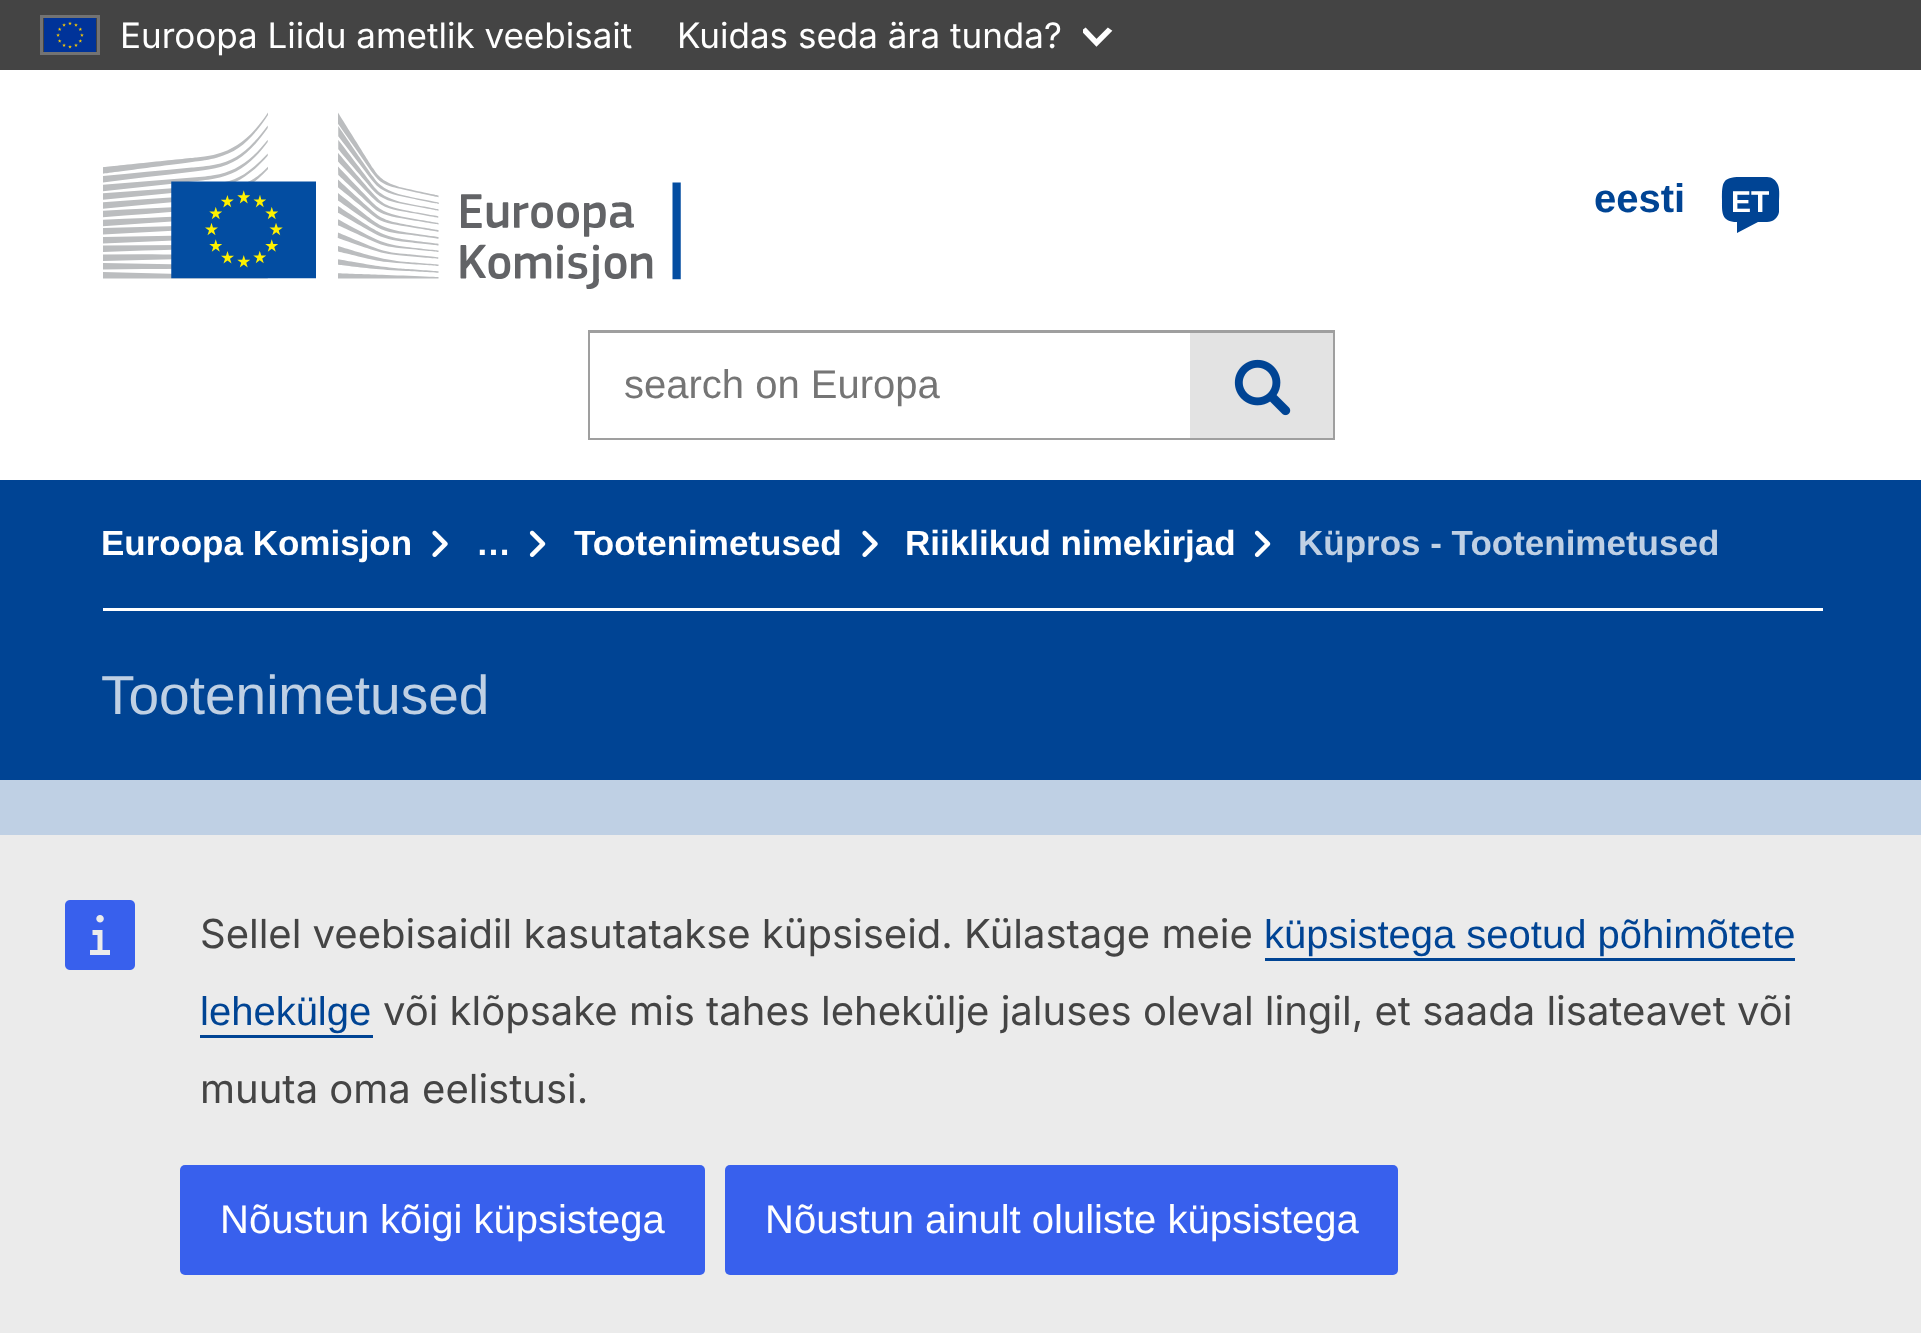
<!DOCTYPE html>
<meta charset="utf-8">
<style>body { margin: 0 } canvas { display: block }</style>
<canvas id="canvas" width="1921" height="1333"></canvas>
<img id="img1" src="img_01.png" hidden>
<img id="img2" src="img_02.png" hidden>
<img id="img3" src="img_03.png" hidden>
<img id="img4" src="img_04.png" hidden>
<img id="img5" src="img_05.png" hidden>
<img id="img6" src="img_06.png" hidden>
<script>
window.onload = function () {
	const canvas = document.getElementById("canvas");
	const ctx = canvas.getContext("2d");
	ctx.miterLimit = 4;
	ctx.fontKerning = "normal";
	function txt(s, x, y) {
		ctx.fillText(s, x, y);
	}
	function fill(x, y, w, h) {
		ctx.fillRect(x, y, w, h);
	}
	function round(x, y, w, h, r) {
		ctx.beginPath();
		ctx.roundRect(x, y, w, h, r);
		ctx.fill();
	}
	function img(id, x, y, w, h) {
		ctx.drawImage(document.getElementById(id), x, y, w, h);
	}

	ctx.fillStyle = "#FFFFFF";
	fill(0, 0, 1921, 1333);
	ctx.fillStyle = "#444444";
	fill(0, 0, 1921, 70);
	ctx.strokeStyle = "#737373";
	ctx.lineWidth = 3;
	ctx.strokeRect(41.5, 16.5, 57, 37);
	img("img1", 44, 18, 52, 34);
	ctx.save();
	ctx.beginPath();
	ctx.rect(1083, 20, 30, 30);
	ctx.clip();
	ctx.beginPath();
	ctx.moveTo(1083.5, 31);
	ctx.lineTo(1085.5, 29.5);
	ctx.lineTo(1096.5, 41);
	ctx.lineTo(1108, 29.5);
	ctx.lineTo(1110, 31);
	ctx.lineTo(1096.5, 44.5);
	ctx.closePath();
	ctx.strokeStyle = "#FFFFFF";
	ctx.lineWidth = 3.1;
	ctx.stroke();
	ctx.restore();
	img("img2", 103, 112, 578, 177);
	ctx.fillStyle = "#004494";
	ctx.beginPath();
	ctx.moveTo(1767, 177);
	ctx.lineTo(1740, 177);
	ctx.bezierCurveTo(1722, 177, 1722, 183, 1722, 200);
	ctx.bezierCurveTo(1722, 212, 1721, 222, 1737, 222);
	ctx.lineTo(1737, 233);
	ctx.lineTo(1758, 222);
	ctx.lineTo(1767, 222);
	ctx.bezierCurveTo(1773, 222, 1778, 218, 1779, 212);
	ctx.lineTo(1779, 203);
	ctx.bezierCurveTo(1779, 198, 1780, 190, 1778, 185);
	ctx.bezierCurveTo(1776, 180, 1772, 177, 1767, 177);
	ctx.closePath();
	ctx.fill();
	ctx.strokeStyle = "#9F9F9F";
	ctx.strokeRect(589.5, 331.5, 744, 107);
	ctx.fillStyle = "#FFFFFF";
	fill(590, 333, 600, 105);
	ctx.fillStyle = "#E3E3E3";
	fill(1190, 333, 143, 105);
	img("img3", 1234, 359, 57, 57);
	ctx.fillStyle = "#004494";
	fill(0, 480, 1921, 300);
	ctx.fillStyle = "#FFFFFF";
	fill(103, 608, 1720, 3);
	img("img4", 432, 530, 16, 27);
	img("img5", 529, 530, 17, 27);
	img("img4", 862, 530, 16, 27);
	img("img5", 1254, 530, 17, 27);
	ctx.fillStyle = "#BFD0E4";
	fill(0, 780, 1921, 55);
	ctx.fillStyle = "#EBEBEB";
	fill(0, 835, 1921, 498);
	img("img6", 65, 900, 70, 70);
	ctx.fillStyle = "#004494";
	fill(1265, 958, 530, 3);
	fill(200, 1035, 173, 3);
	ctx.fillStyle = "#3860ED";
	round(180, 1165, 525, 110, 5);
	round(725, 1165, 673, 110, 5);
	ctx.font = "35px Inter";
	ctx.fillStyle = "#FFFFFF";
	txt("Euroopa Liidu ametlik veebisait", 120, 48);
	txt("Kuidas seda ära tunda?", 677, 48);
	ctx.font = "bold 40px Liberation Sans";
	ctx.fillStyle = "#004494";
	txt("eesti", 1594, 212);
	ctx.font = "bold 30px Liberation Sans";
	ctx.fillStyle = "#FFFFFF";
	txt("ET", 1731, 212);
	ctx.font = "40px Liberation Sans";
	ctx.fillStyle = "#757575";
	txt("search on Europa", 624, 398);
	ctx.font = "bold 35px Liberation Sans";
	ctx.fillStyle = "#FFFFFF";
	txt("Euroopa Komisjon", 101, 555);
	txt("…", 476, 555);
	txt("Tootenimetused", 574, 555);
	txt("Riiklikud nimekirjad", 905, 555);
	ctx.fillStyle = "#BFD0E4";
	txt("Küpros - Tootenimetused", 1298, 555);
	ctx.font = "55px Liberation Sans";
	txt("Tootenimetused", 101, 714);
	ctx.font = "40px Inter";
	ctx.fillStyle = "#444444";
	txt("Sellel veebisaidil kasutatakse küpsiseid. Külastage meie", 200, 948);
	ctx.font = "40px Liberation Sans";
	ctx.fillStyle = "#004494";
	txt("küpsistega seotud põhimõtete", 1264, 948);
	txt("lehekülge", 200, 1025);
	ctx.font = "40px Inter";
	ctx.fillStyle = "#444444";
	txt("või klõpsake mis tahes lehekülje jaluses oleval lingil, et saada lisateavet või", 383, 1025);
	txt("muuta oma eelistusi.", 200, 1103);
	ctx.font = "40px Liberation Sans";
	ctx.fillStyle = "#FFFFFF";
	txt("Nõustun kõigi küpsistega", 220, 1233);
	txt("Nõustun ainult oluliste küpsistega", 765, 1233);
};
</script>
